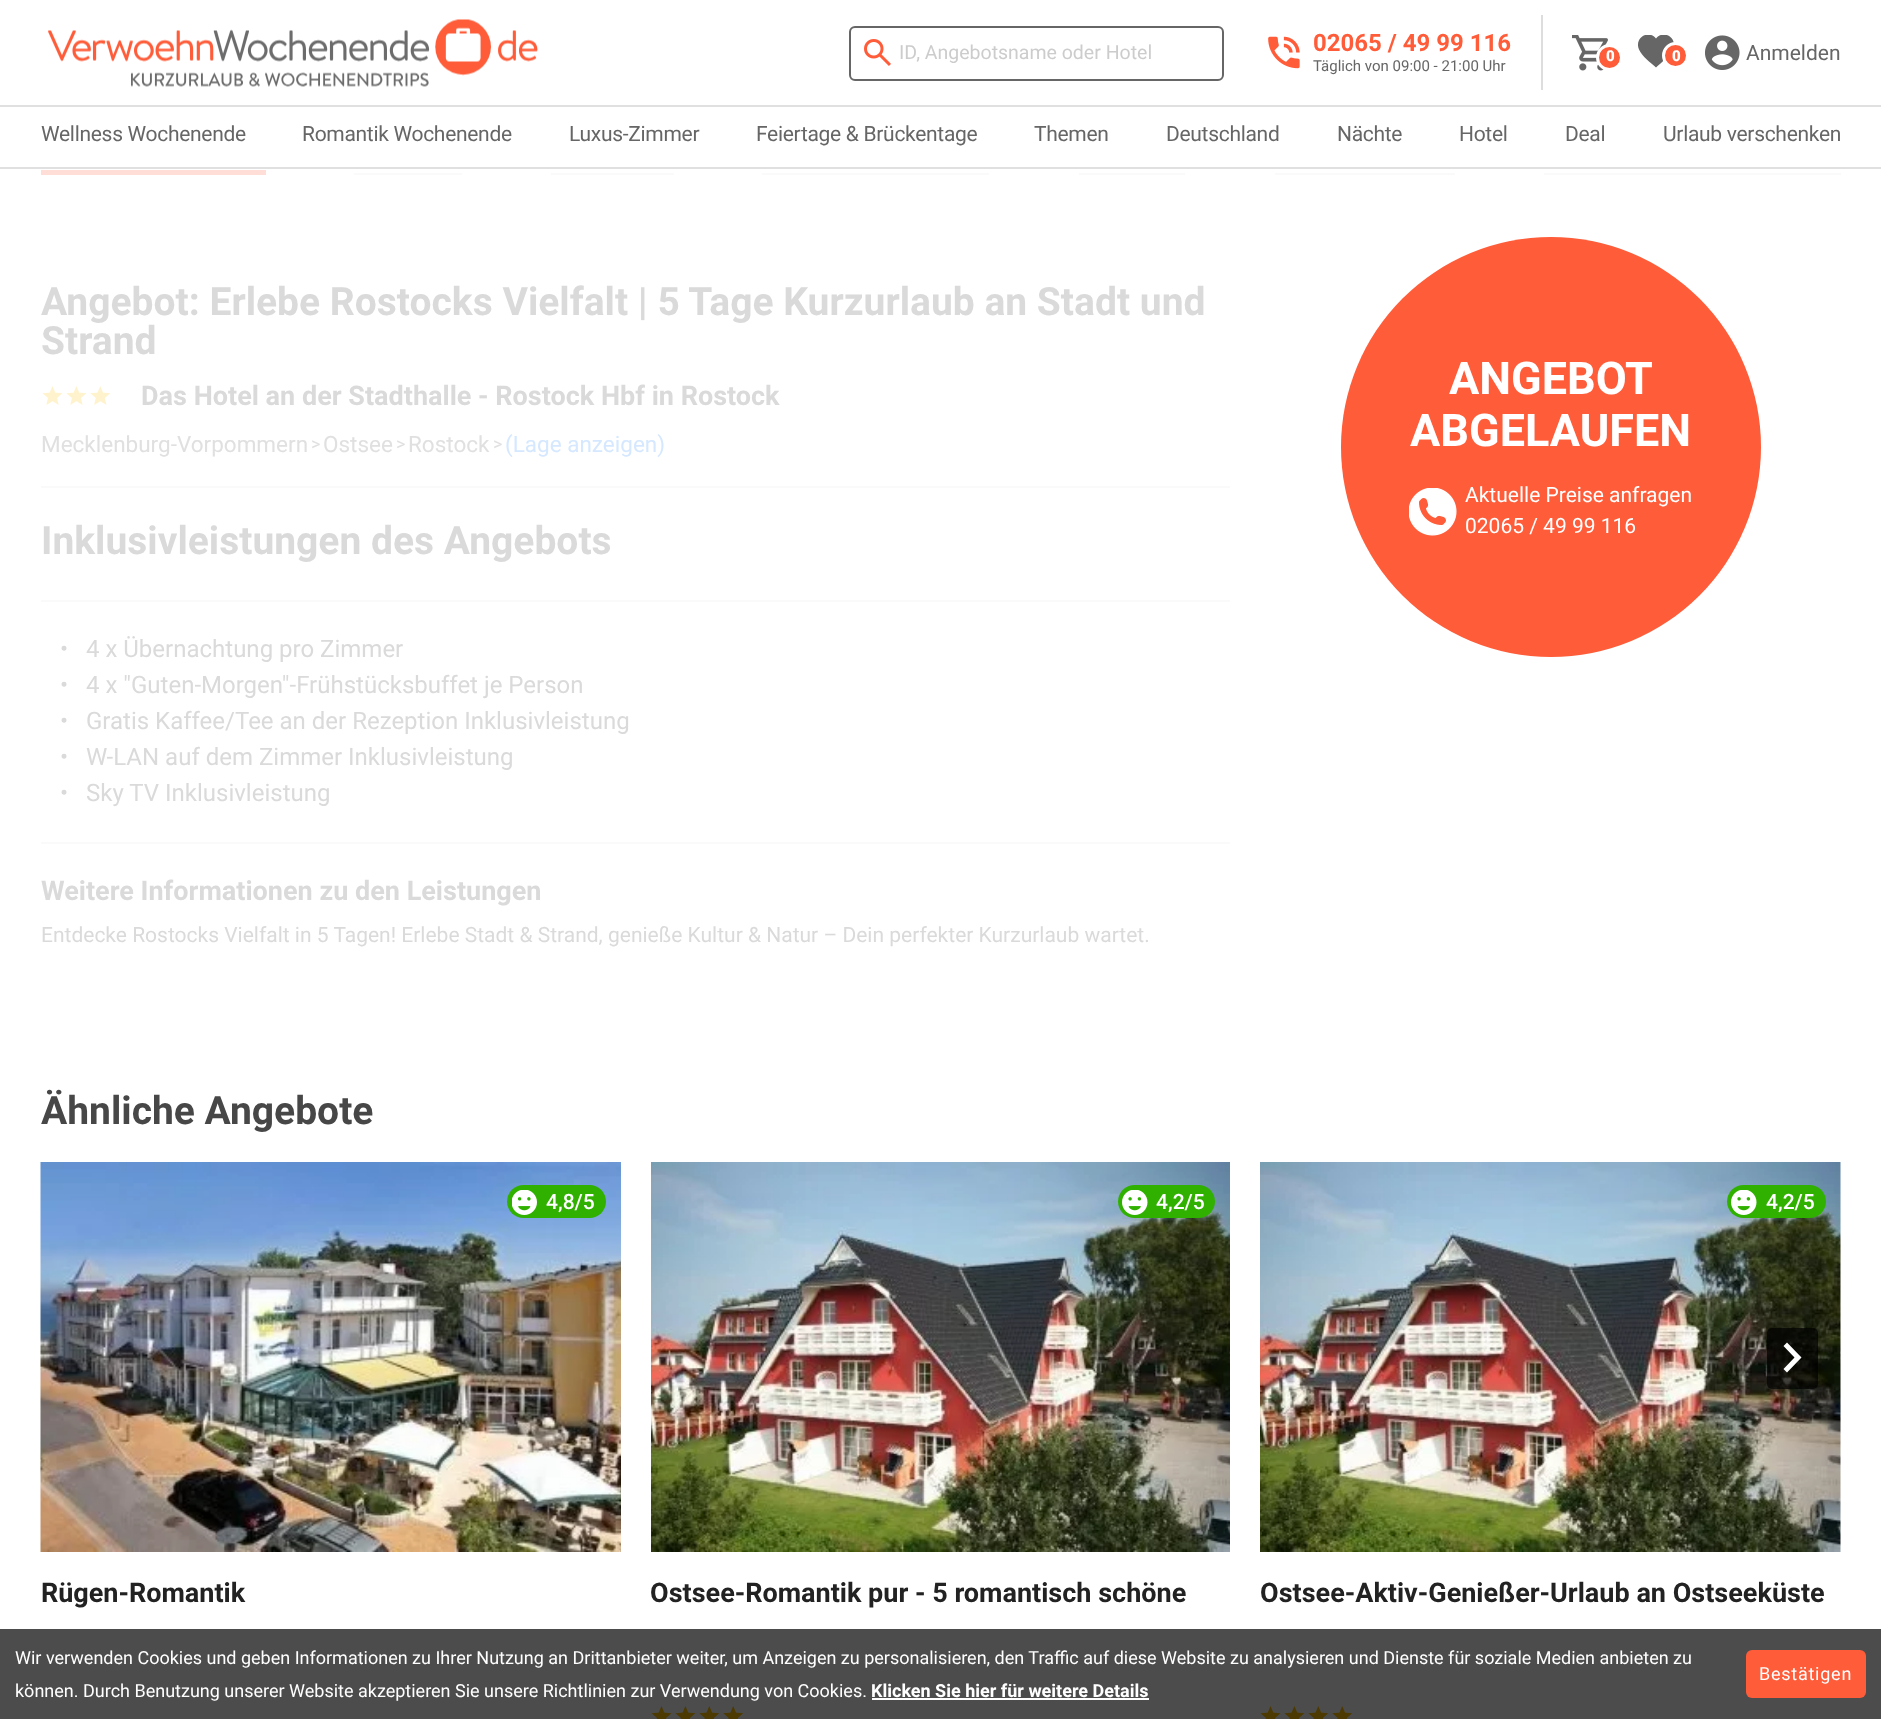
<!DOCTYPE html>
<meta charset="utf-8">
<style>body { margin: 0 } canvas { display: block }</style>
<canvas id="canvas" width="1881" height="1719"></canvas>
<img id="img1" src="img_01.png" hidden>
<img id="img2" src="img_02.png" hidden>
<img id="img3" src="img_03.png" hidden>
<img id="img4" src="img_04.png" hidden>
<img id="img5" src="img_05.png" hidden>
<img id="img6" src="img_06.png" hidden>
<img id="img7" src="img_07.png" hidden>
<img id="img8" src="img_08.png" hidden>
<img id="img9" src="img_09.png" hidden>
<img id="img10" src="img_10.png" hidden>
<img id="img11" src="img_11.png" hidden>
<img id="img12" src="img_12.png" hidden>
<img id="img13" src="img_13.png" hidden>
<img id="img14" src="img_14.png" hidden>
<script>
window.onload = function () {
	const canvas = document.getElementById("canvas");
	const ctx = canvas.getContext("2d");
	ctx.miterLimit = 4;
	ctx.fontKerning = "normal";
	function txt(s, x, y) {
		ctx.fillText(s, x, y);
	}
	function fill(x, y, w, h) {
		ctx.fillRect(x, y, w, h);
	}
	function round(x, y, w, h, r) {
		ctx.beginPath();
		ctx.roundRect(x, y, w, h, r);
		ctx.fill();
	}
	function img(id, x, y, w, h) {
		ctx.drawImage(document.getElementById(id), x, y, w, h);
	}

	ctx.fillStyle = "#FFFFFF";
	fill(0, 0, 1881, 1719);
	ctx.fillStyle = "#E0E0E0";
	fill(0, 105, 1881, 2);
	img("img1", 48, 19, 490, 68);
	ctx.beginPath();
	ctx.roundRect(850, 27, 373, 53, 5);
	ctx.strokeStyle = "#666666";
	ctx.lineWidth = 2;
	ctx.stroke();
	img("img2", 864, 39, 27, 27);
	img("img3", 1268, 36, 32, 33);
	ctx.fillStyle = "#DDDDDD";
	fill(1541, 15, 2, 75);
	img("img4", 1572, 35, 36, 36);
	ctx.fillStyle = "#FF5C39";
	ctx.beginPath();
	ctx.arc(1609.5, 57.5, 12, 0, Math.PI * 2);
	ctx.fill();
	ctx.strokeStyle = "#FFFFFF";
	ctx.lineWidth = 3;
	ctx.stroke();
	ctx.save();
	ctx.beginPath();
	ctx.rect(1638, 35, 36, 34);
	ctx.clip();
	ctx.fillStyle = "#666666";
	ctx.beginPath();
	ctx.moveTo(1656, 67.5);
	ctx.bezierCurveTo(1650.5, 62.5, 1642, 56.5, 1639, 49.5);
	ctx.bezierCurveTo(1634, 38, 1648.5, 29, 1656, 38.5);
	ctx.bezierCurveTo(1663.5, 29, 1678, 38, 1673, 49.5);
	ctx.bezierCurveTo(1670, 56, 1661.5, 62.5, 1656, 67.5);
	ctx.closePath();
	ctx.fill();
	ctx.restore();
	ctx.beginPath();
	ctx.arc(1675.5, 55.5, 12, 0, Math.PI * 2);
	ctx.fill();
	ctx.stroke();
	img("img5", 1705, 35, 35, 35);
	ctx.fillStyle = "#E0E0E0";
	fill(0, 167, 1881, 2);
	ctx.fillStyle = "#FFDED7";
	fill(41, 170, 225, 5);
	ctx.fillStyle = "#FAFAFA";
	fill(354, 173, 108, 2);
	fill(551, 173, 123, 2);
	fill(762, 173, 227, 2);
	fill(1079, 173, 106, 2);
	fill(1275, 173, 180, 2);
	fill(1544, 173, 297, 2);
	fill(41, 486, 1189, 2);
	img("img6", 42, 386, 69, 19);
	fill(41, 600, 1189, 2);
	fill(41, 842, 1189, 2);
	ctx.fillStyle = "#FF5C39";
	ctx.beginPath();
	ctx.arc(1551, 447, 210, 0, Math.PI * 2);
	ctx.fill();
	img("img7", 1409, 488, 48, 48);
	img("img8", 40, 1162, 581, 390);
	ctx.fillStyle = "#30B100";
	round(507, 1185, 99, 33, 16.5);
	img("img9", 512, 1190, 25, 25);
	img("img10", 651, 1162, 579, 390);
	round(1118, 1185, 97, 33, 16.5);
	img("img11", 1122, 1190, 26, 25);
	img("img12", 651, 1706, 93, 13);
	img("img13", 1260, 1162, 581, 390);
	round(1727, 1185, 99, 33, 16.5);
	img("img14", 1731, 1190, 26, 25);
	img("img12", 1260, 1706, 93, 13);
	ctx.fillStyle = "rgba(0, 0, 0, 0.7)";
	round(1767, 1328, 51, 61, 5);
	ctx.fillStyle = "#FFFFFF";
	ctx.beginPath();
	ctx.moveTo(1783.5, 1369);
	ctx.lineTo(1794.5, 1357.5);
	ctx.lineTo(1783.5, 1346);
	ctx.lineTo(1787, 1342.5);
	ctx.lineTo(1801.5, 1357.5);
	ctx.lineTo(1787, 1372.5);
	ctx.closePath();
	ctx.fill();
	ctx.fillStyle = "rgba(0, 0, 0, 0.7)";
	fill(0, 1629, 1881, 90);
	ctx.fillStyle = "#FFFFFF";
	fill(872, 1698, 277, 2);
	ctx.fillStyle = "#FF5C39";
	round(1746, 1650, 120, 48, 6);
	ctx.font = "19.5px Roboto";
	ctx.fillStyle = "#CCCCCC";
	txt("ID, Angebotsname oder Hotel", 899, 59);
	ctx.font = "bold 24px Roboto";
	ctx.fillStyle = "#FF5C39";
	txt("02065 / 49 ‌99 116", 1313, 51);
	ctx.font = "15px Roboto";
	ctx.fillStyle = "#666666";
	txt("Täglich von 09:00 - 21:00 Uhr", 1313, 71);
	ctx.font = "900 15px Roboto";
	ctx.fillStyle = "#FFFFFF";
	txt("0", 1606, 61);
	txt("0", 1672, 61);
	ctx.font = "21px Roboto";
	ctx.fillStyle = "#666666";
	txt("Anmelden", 1746, 60);
	ctx.letterSpacing = "-0.3px";
	txt("Wellness Wochenende", 41, 141);
	txt("Romantik Wochenende", 302, 141);
	txt("Luxus-Zimmer", 569, 141);
	txt("Feiertage & Brückentage", 756, 141);
	txt("Themen", 1034, 141);
	txt("Deutschland", 1166, 141);
	txt("Nächte", 1337, 141);
	txt("Hotel", 1459, 141);
	txt("Deal", 1565, 141);
	txt("Urlaub verschenken", 1663, 141);
	ctx.letterSpacing = "0px";
	ctx.font = "bold 39px Roboto";
	ctx.fillStyle = "#DADADA";
	txt("Angebot: Erlebe Rostocks Vielfalt | 5 Tage Kurzurlaub an Stadt und", 41, 315);
	txt("Strand", 41, 354);
	ctx.font = "bold 27px Roboto";
	txt("Das Hotel an der Stadthalle - Rostock Hbf in Rostock", 141, 405);
	ctx.font = "22.5px Roboto";
	ctx.fillStyle = "#E0E0E0";
	txt("Mecklenburg-Vorpommern", 41, 452);
	ctx.font = "18px Roboto";
	txt(">", 311, 450);
	ctx.font = "22.5px Roboto";
	txt("Ostsee", 323, 452);
	ctx.font = "18px Roboto";
	txt(">", 396, 450);
	ctx.font = "22.5px Roboto";
	txt("Rostock", 408, 452);
	ctx.font = "18px Roboto";
	txt(">", 493, 450);
	ctx.font = "22.5px Roboto";
	ctx.fillStyle = "#D5E8FF";
	txt("(Lage anzeigen)", 505, 452);
	ctx.font = "bold 39px Roboto";
	ctx.fillStyle = "#DADADA";
	txt("Inklusivleistungen des Angebots", 41, 554);
	ctx.font = "24px Roboto";
	txt("•", 60, 657);
	txt("4 x Übernachtung pro Zimmer", 86, 657);
	txt("•", 60, 693);
	txt("4 x \"Guten-Morgen\"-Frühstücksbuffet je Person", 86, 693);
	txt("•", 60, 729);
	txt("Gratis Kaffee/Tee an der Rezeption Inklusivleistung", 86, 729);
	txt("•", 60, 765);
	txt("W-LAN auf dem Zimmer Inklusivleistung", 86, 765);
	txt("•", 60, 801);
	txt("Sky TV Inklusivleistung", 86, 801);
	ctx.font = "bold 27px Roboto";
	txt("Weitere Informationen zu den Leistungen", 41, 900);
	ctx.font = "21px Roboto";
	txt("Entdecke Rostocks Vielfalt in 5 Tagen! Erlebe Stadt & Strand, genieße Kultur & Natur – Dein perfekter Kurzurlaub wartet.", 41, 942);
	ctx.font = "bold 45px Roboto";
	ctx.fillStyle = "#FFFFFF";
	txt("ANGEBOT", 1449, 394);
	txt("ABGELAUFEN", 1410, 446);
	ctx.font = "21px Roboto";
	txt("Aktuelle Preise anfragen", 1465, 502);
	txt("02065 / 49 99 116", 1465, 533);
	ctx.font = "bold 39px Roboto";
	ctx.fillStyle = "#474747";
	txt("Ähnliche Angebote", 41, 1124);
	ctx.font = "500 21px Roboto";
	ctx.fillStyle = "#FFFFFF";
	txt("4,8/5", 546, 1209);
	ctx.font = "bold 27px Roboto";
	ctx.fillStyle = "#222222";
	txt("Rügen-Romantik", 41, 1602);
	ctx.font = "500 21px Roboto";
	ctx.fillStyle = "#FFFFFF";
	txt("4,2/5", 1156, 1209);
	ctx.font = "bold 27px Roboto";
	ctx.fillStyle = "#222222";
	txt("Ostsee-Romantik pur - 5 romantisch schöne", 650, 1602);
	ctx.font = "500 21px Roboto";
	ctx.fillStyle = "#FFFFFF";
	txt("4,2/5", 1766, 1209);
	ctx.font = "bold 27px Roboto";
	ctx.fillStyle = "#222222";
	txt("Ostsee-Aktiv-Genießer-Urlaub an Ostseeküste", 1260, 1602);
	ctx.font = "18px Roboto";
	ctx.fillStyle = "#FFFFFF";
	txt("Wir verwenden Cookies und geben Informationen zu Ihrer Nutzung an Drittanbieter weiter, um Anzeigen zu personalisieren, den Traffic auf diese Website zu analysieren und Dienste für soziale Medien anbieten zu", 15, 1664);
	txt("können. Durch Benutzung unserer Website akzeptieren Sie unsere Richtlinien zur Verwendung von Cookies.", 15, 1697);
	ctx.font = "bold 18px Roboto";
	txt("Klicken Sie hier für weitere Details", 871, 1697);
	ctx.letterSpacing = "0.75px";
	ctx.font = "18px Roboto";
	txt("Bestätigen", 1759, 1680);
};
</script>
